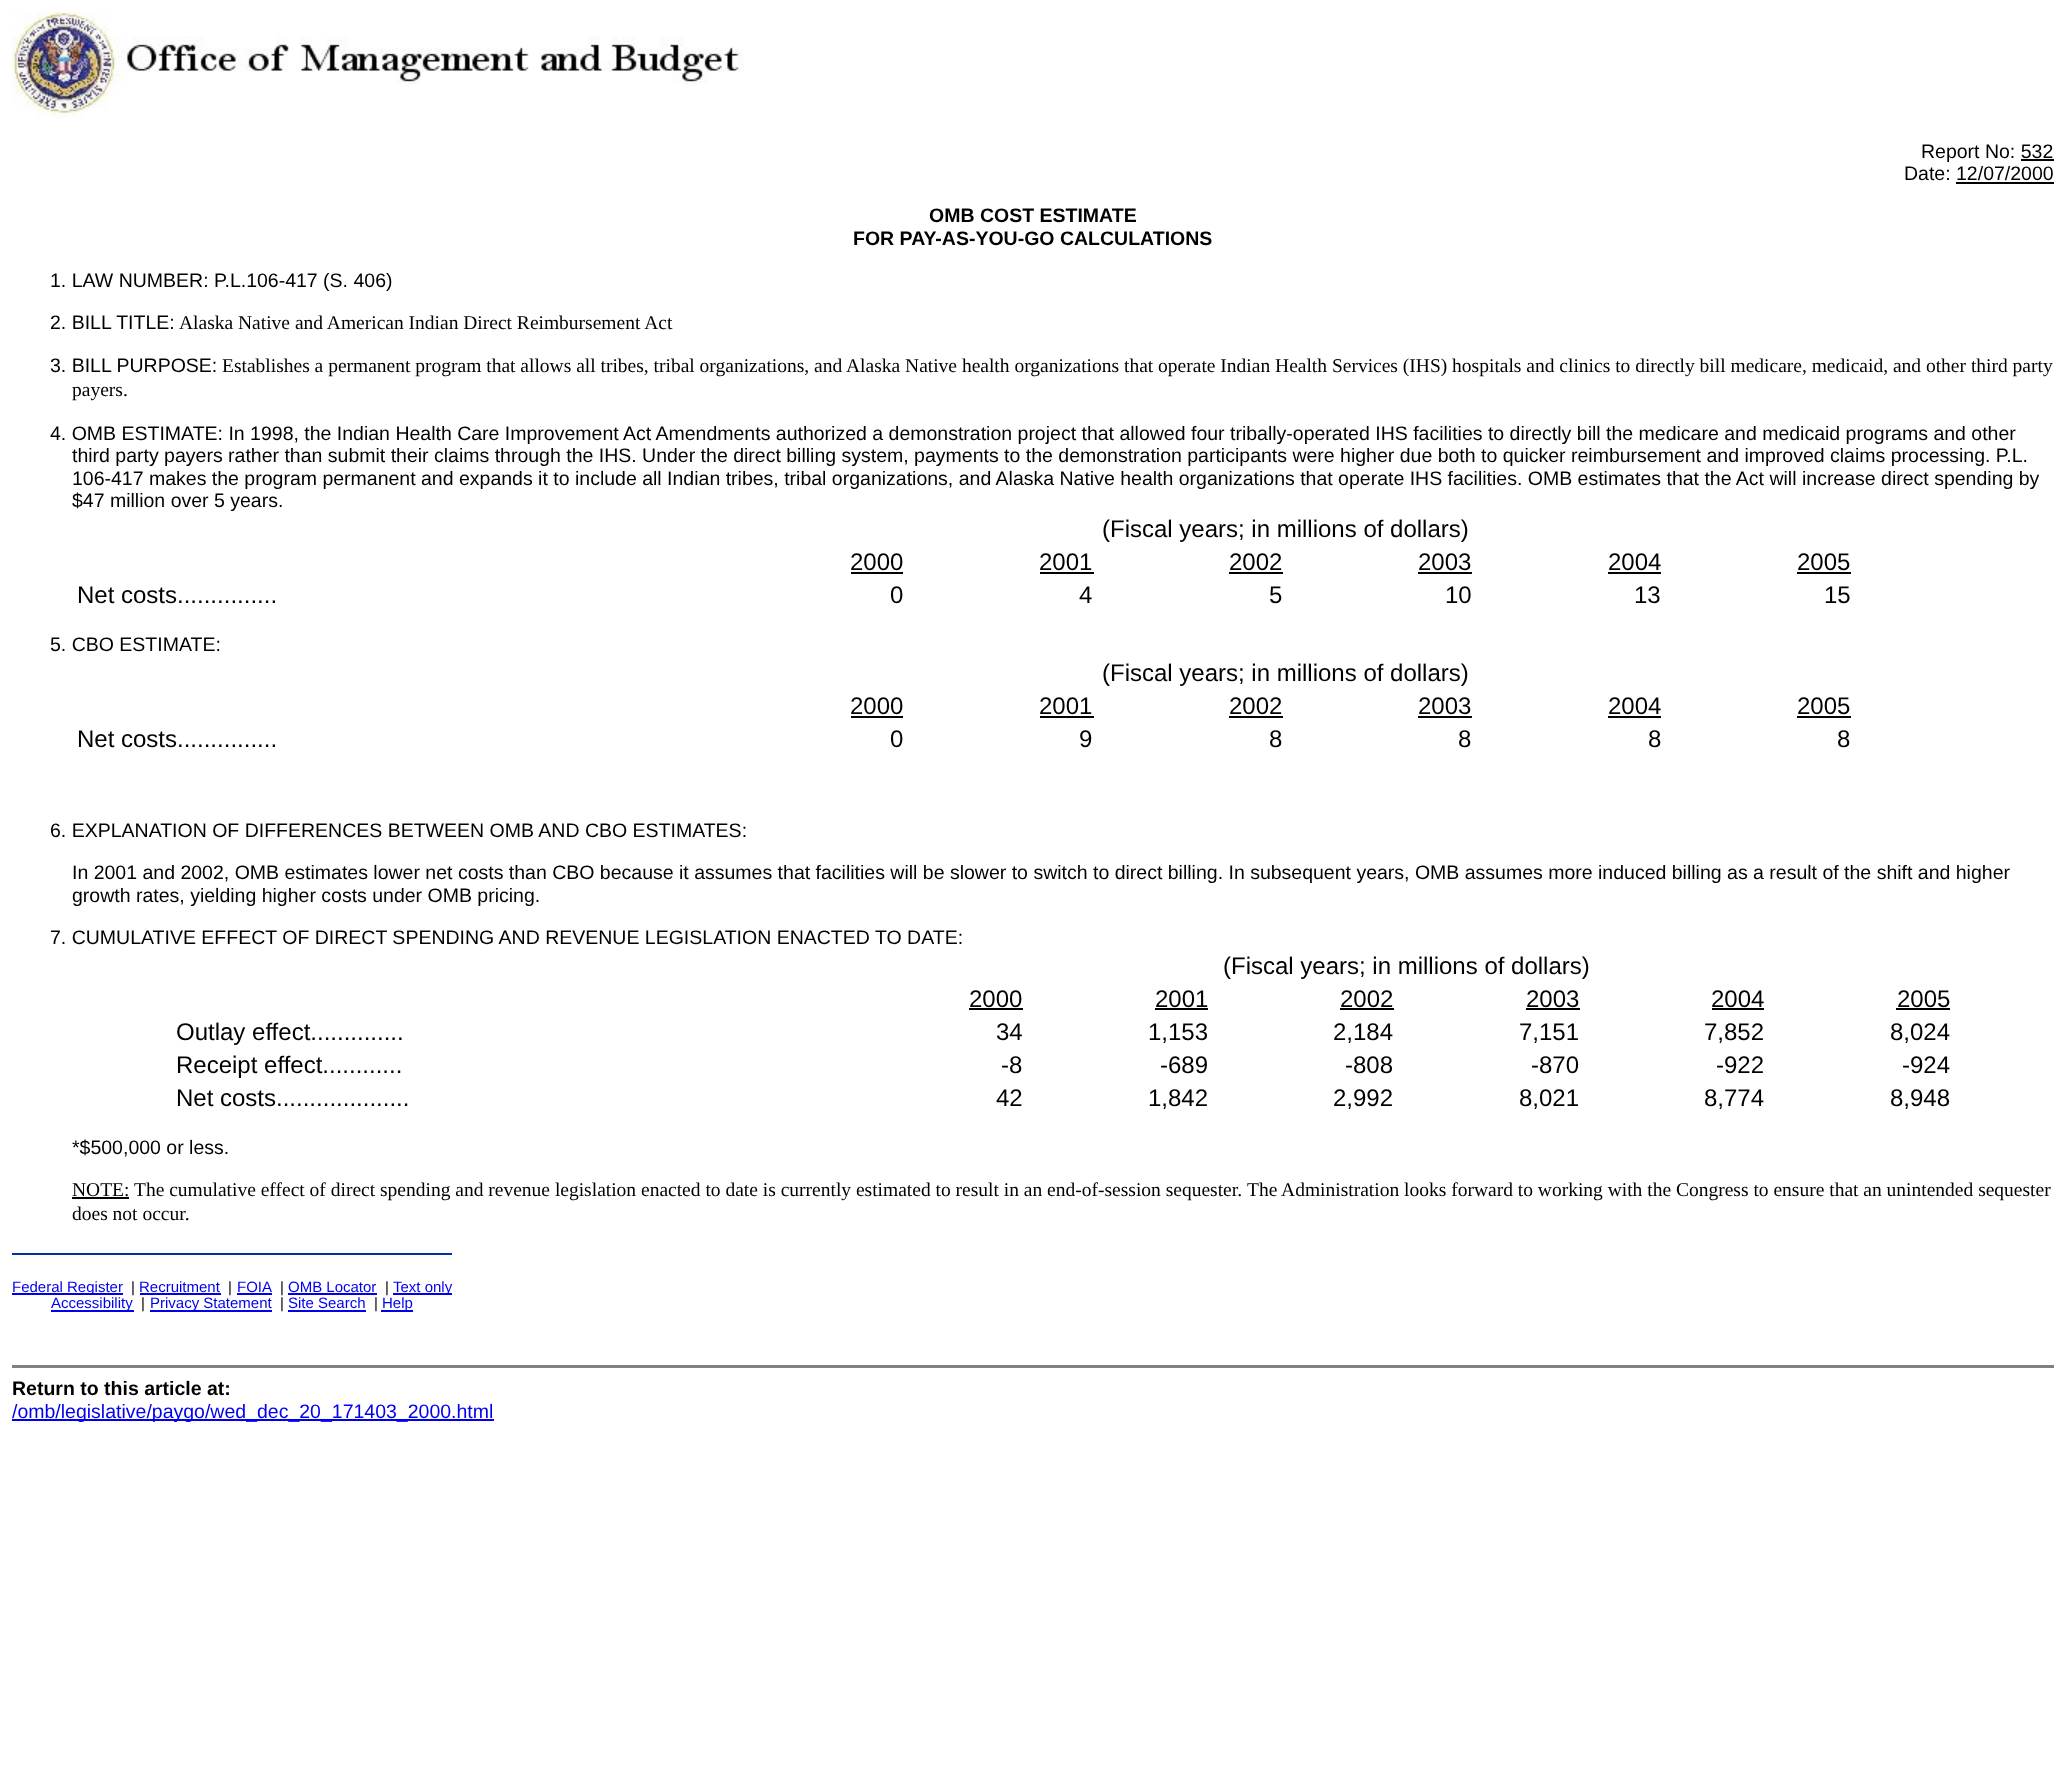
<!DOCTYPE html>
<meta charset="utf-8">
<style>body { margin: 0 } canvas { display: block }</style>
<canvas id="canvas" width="2065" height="1788"></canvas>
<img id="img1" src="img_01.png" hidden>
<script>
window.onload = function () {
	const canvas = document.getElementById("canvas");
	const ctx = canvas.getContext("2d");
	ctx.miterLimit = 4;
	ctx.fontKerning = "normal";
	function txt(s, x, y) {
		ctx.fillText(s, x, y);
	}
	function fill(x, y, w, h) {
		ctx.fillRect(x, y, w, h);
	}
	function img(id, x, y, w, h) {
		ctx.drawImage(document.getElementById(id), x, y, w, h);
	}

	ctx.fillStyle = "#FFFFFF";
	fill(0, 0, 2065, 1788);
	img("img1", 12, 12, 732, 106);
	ctx.fillStyle = "#000000";
	fill(2021, 159, 33, 2);
	fill(1956, 182, 98, 2);
	fill(851, 572, 52, 2);
	fill(1040, 572, 54, 2);
	fill(1229, 572, 54, 2);
	fill(1418, 572, 54, 2);
	fill(1608, 572, 53, 2);
	fill(1797, 572, 54, 2);
	fill(851, 716, 52, 2);
	fill(1040, 716, 54, 2);
	fill(1229, 716, 54, 2);
	fill(1418, 716, 54, 2);
	fill(1608, 716, 53, 2);
	fill(1797, 716, 54, 2);
	fill(969, 1008, 54, 2);
	fill(1155, 1008, 53, 2);
	fill(1340, 1008, 54, 2);
	fill(1526, 1008, 54, 2);
	fill(1712, 1008, 52, 2);
	fill(1896, 1008, 54, 2);
	fill(72, 1197, 57, 2);
	ctx.fillStyle = "#003399";
	fill(12, 1253, 440, 2);
	ctx.fillStyle = "#0000EE";
	fill(12, 1293, 111, 2);
	fill(140, 1293, 81, 2);
	fill(237, 1293, 35, 2);
	fill(288, 1293, 89, 2);
	fill(393, 1293, 59, 2);
	fill(51, 1310, 83, 2);
	fill(150, 1310, 122, 2);
	fill(288, 1310, 78, 2);
	fill(381, 1310, 32, 2);
	ctx.fillStyle = "#808080";
	fill(12, 1365, 2042, 3);
	ctx.fillStyle = "#0000EE";
	fill(12, 1419, 482, 2);
	ctx.font = "19.5px Liberation Sans";
	ctx.fillStyle = "#000000";
	txt("Report No: 532", 1921, 158);
	txt("Date: 12/07/2000", 1904, 180);
	ctx.font = "bold 19.5px Liberation Sans";
	txt("OMB COST ESTIMATE", 929, 222);
	txt("FOR PAY-AS-YOU-GO CALCULATIONS", 853, 245);
	ctx.font = "19.5px Liberation Sans";
	txt("1. LAW NUMBER: P.L.106-417 (S. 406)", 50, 287);
	txt("2. BILL TITLE:", 50, 329);
	ctx.font = "19.5px Liberation Serif";
	txt("Alaska Native and American Indian Direct Reimbursement Act", 179, 329);
	ctx.font = "19.5px Liberation Sans";
	txt("3. BILL PURPOSE:", 50, 372);
	ctx.font = "19.5px Liberation Serif";
	txt("Establishes a permanent program that allows all tribes, tribal organizations, and Alaska Native health organizations that operate Indian Health Services (IHS) hospitals and clinics to directly bill medicare, medicaid, and other third party", 222, 372);
	txt("payers.", 72, 396);
	ctx.font = "19.5px Liberation Sans";
	txt("4. OMB ESTIMATE: In 1998, the Indian Health Care Improvement Act Amendments authorized a demonstration project that allowed four tribally-operated IHS facilities to directly bill the medicare and medicaid programs and other", 50, 440);
	txt("third party payers rather than submit their claims through the IHS. Under the direct billing system, payments to the demonstration participants were higher due both to quicker reimbursement and improved claims processing. P.L.", 72, 462);
	txt("106-417 makes the program permanent and expands it to include all Indian tribes, tribal organizations, and Alaska Native health organizations that operate IHS facilities. OMB estimates that the Act will increase direct spending by", 72, 485);
	txt("$47 million over 5 years.", 72, 507);
	ctx.font = "24px Liberation Sans";
	txt("(Fiscal years; in millions of dollars)", 1102, 537);
	txt("2000", 850, 570);
	txt("2001", 1039, 570);
	txt("2002", 1229, 570);
	txt("2003", 1418, 570);
	txt("2004", 1608, 570);
	txt("2005", 1797, 570);
	txt("Net costs...............", 77, 603);
	txt("0", 890, 603);
	txt("4", 1079, 603);
	txt("5", 1269, 603);
	txt("10", 1445, 603);
	txt("13", 1634, 603);
	txt("15", 1824, 603);
	ctx.font = "19.5px Liberation Sans";
	txt("5. CBO ESTIMATE:", 50, 651);
	ctx.font = "24px Liberation Sans";
	txt("(Fiscal years; in millions of dollars)", 1102, 681);
	txt("2000", 850, 714);
	txt("2001", 1039, 714);
	txt("2002", 1229, 714);
	txt("2003", 1418, 714);
	txt("2004", 1608, 714);
	txt("2005", 1797, 714);
	txt("Net costs...............", 77, 747);
	txt("0", 890, 747);
	txt("9", 1079, 747);
	txt("8", 1269, 747);
	txt("8", 1458, 747);
	txt("8", 1648, 747);
	txt("8", 1837, 747);
	ctx.font = "19.5px Liberation Sans";
	txt("6. EXPLANATION OF DIFFERENCES BETWEEN OMB AND CBO ESTIMATES:", 50, 837);
	txt("In 2001 and 2002, OMB estimates lower net costs than CBO because it assumes that facilities will be slower to switch to direct billing. In subsequent years, OMB assumes more induced billing as a result of the shift and higher", 72, 879);
	txt("growth rates, yielding higher costs under OMB pricing.", 72, 902);
	txt("7. CUMULATIVE EFFECT OF DIRECT SPENDING AND REVENUE LEGISLATION ENACTED TO DATE:", 50, 944);
	ctx.font = "24px Liberation Sans";
	txt("(Fiscal years; in millions of dollars)", 1223, 974);
	txt("2000", 969, 1007);
	txt("2001", 1155, 1007);
	txt("2002", 1340, 1007);
	txt("2003", 1526, 1007);
	txt("2004", 1711, 1007);
	txt("2005", 1897, 1007);
	txt("Outlay effect..............", 176, 1040);
	txt("34", 996, 1040);
	txt("1,153", 1148, 1040);
	txt("2,184", 1333, 1040);
	txt("7,151", 1519, 1040);
	txt("7,852", 1704, 1040);
	txt("8,024", 1890, 1040);
	txt("Receipt effect............", 176, 1073);
	txt("-8", 1001, 1073);
	txt("-689", 1160, 1073);
	txt("-808", 1345, 1073);
	txt("-870", 1531, 1073);
	txt("-922", 1716, 1073);
	txt("-924", 1902, 1073);
	txt("Net costs....................", 176, 1106);
	txt("42", 996, 1106);
	txt("1,842", 1148, 1106);
	txt("2,992", 1333, 1106);
	txt("8,021", 1519, 1106);
	txt("8,774", 1704, 1106);
	txt("8,948", 1890, 1106);
	ctx.font = "19.5px Liberation Sans";
	txt("*$500,000 or less.", 72, 1154);
	ctx.font = "19.5px Liberation Serif";
	txt("NOTE:", 72, 1196);
	txt("The cumulative effect of direct spending and revenue legislation enacted to date is currently estimated to result in an end-of-session sequester.", 134, 1196);
	txt("The Administration looks forward to working with the Congress to ensure that an unintended sequester", 1247, 1196);
	txt("does not occur.", 72, 1220);
	ctx.font = "15px Liberation Sans";
	ctx.fillStyle = "#0000EE";
	txt("Federal Register", 12, 1292);
	ctx.fillStyle = "#000000";
	txt("|", 131, 1292);
	ctx.fillStyle = "#0000EE";
	txt("Recruitment", 139, 1292);
	ctx.fillStyle = "#000000";
	txt("|", 228, 1292);
	ctx.fillStyle = "#0000EE";
	txt("FOIA", 237, 1292);
	ctx.fillStyle = "#000000";
	txt("|", 280, 1292);
	ctx.fillStyle = "#0000EE";
	txt("OMB Locator", 288, 1292);
	ctx.fillStyle = "#000000";
	txt("|", 385, 1292);
	ctx.fillStyle = "#0000EE";
	txt("Text only", 393, 1292);
	txt("Accessibility", 51, 1308);
	ctx.fillStyle = "#000000";
	txt("|", 141, 1308);
	ctx.fillStyle = "#0000EE";
	txt("Privacy Statement", 150, 1308);
	ctx.fillStyle = "#000000";
	txt("|", 280, 1308);
	ctx.fillStyle = "#0000EE";
	txt("Site Search", 288, 1308);
	ctx.fillStyle = "#000000";
	txt("|", 374, 1308);
	ctx.fillStyle = "#0000EE";
	txt("Help", 382, 1308);
	ctx.font = "bold 19.5px Liberation Sans";
	ctx.fillStyle = "#000000";
	txt("Return to this article at:", 12, 1395);
	ctx.font = "19.5px Liberation Sans";
	ctx.fillStyle = "#0000EE";
	txt("/omb/legislative/paygo/wed_dec_20_171403_2000.html", 12, 1418);
};
</script>
